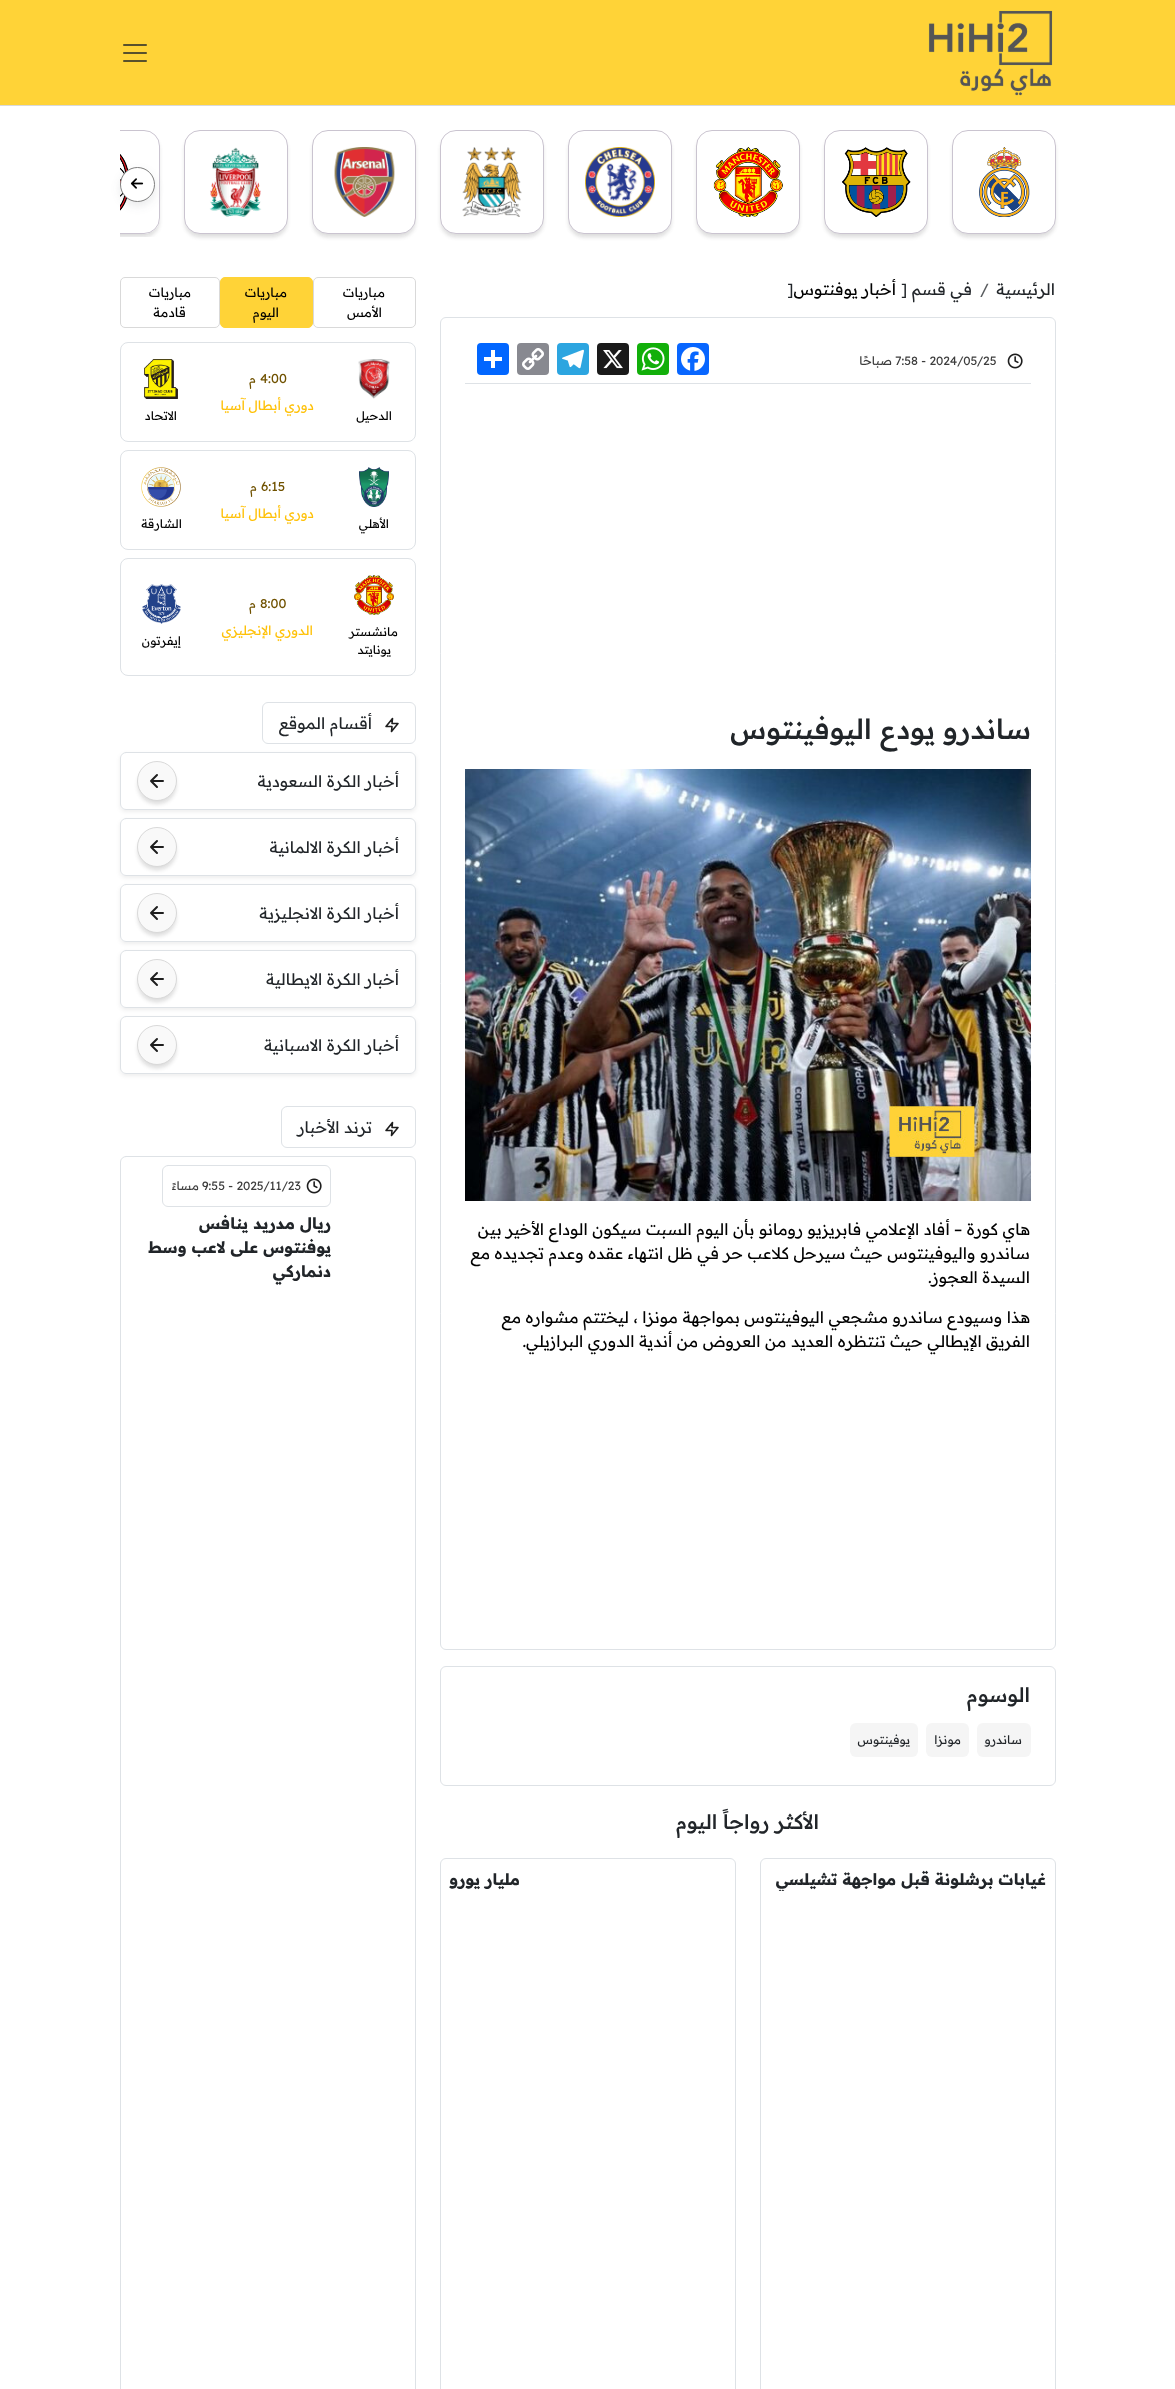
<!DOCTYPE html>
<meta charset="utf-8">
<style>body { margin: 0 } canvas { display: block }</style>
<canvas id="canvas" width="1175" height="2389"></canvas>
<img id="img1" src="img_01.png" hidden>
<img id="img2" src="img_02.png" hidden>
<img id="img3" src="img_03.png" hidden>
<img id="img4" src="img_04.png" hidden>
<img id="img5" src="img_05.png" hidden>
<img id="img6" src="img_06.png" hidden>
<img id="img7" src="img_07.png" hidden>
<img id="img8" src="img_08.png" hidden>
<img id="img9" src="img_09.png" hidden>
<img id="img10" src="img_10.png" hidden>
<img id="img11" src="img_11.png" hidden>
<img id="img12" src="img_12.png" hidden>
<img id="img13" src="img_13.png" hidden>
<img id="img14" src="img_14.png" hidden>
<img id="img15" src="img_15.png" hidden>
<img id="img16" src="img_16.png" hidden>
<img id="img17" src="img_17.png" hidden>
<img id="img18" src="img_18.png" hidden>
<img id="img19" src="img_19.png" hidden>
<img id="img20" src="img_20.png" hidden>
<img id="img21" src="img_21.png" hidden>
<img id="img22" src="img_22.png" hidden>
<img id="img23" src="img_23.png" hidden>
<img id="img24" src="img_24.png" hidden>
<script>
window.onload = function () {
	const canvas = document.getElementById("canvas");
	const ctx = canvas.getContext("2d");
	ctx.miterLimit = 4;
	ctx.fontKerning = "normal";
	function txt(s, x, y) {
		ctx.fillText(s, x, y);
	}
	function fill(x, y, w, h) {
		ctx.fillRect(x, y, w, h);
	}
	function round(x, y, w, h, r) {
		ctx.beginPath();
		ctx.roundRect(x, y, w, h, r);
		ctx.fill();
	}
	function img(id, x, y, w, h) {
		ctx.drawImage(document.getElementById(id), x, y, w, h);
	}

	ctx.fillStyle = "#FFFFFF";
	fill(0, 0, 1175, 2389);
	ctx.fillStyle = "#FFD337";
	fill(0, 0, 1175, 105);
	ctx.fillStyle = "#D9D9D9";
	fill(0, 105, 1175, 1);
	img("img1", 928, 10, 125, 86);
	img("img2", 123, 44, 24, 18);
	ctx.fillStyle = "rgba(12, 12, 13, 0.05)";
	ctx.filter = "blur(2px)";
	ctx.beginPath();
	ctx.roundRect(953, 135, 102, 102, 15);
	ctx.fill();
	ctx.filter = "none";
	ctx.fillStyle = "rgba(12, 12, 13, 0.1)";
	ctx.filter = "blur(2px)";
	ctx.beginPath();
	ctx.roundRect(953, 135, 102, 102, 15);
	ctx.fill();
	ctx.filter = "none";
	ctx.fillStyle = "#FFFFFF";
	ctx.beginPath();
	ctx.roundRect(952.5, 130.5, 103, 103, 15.5);
	ctx.fill();
	ctx.strokeStyle = "#CAC4D0";
	ctx.stroke();
	img("img3", 979, 147, 51, 70);
	ctx.fillStyle = "rgba(12, 12, 13, 0.05)";
	ctx.filter = "blur(2px)";
	ctx.beginPath();
	ctx.roundRect(825, 135, 102, 102, 15);
	ctx.fill();
	ctx.filter = "none";
	ctx.fillStyle = "rgba(12, 12, 13, 0.1)";
	ctx.filter = "blur(2px)";
	ctx.beginPath();
	ctx.roundRect(825, 135, 102, 102, 15);
	ctx.fill();
	ctx.filter = "none";
	ctx.fillStyle = "#FFFFFF";
	ctx.beginPath();
	ctx.roundRect(824.5, 130.5, 103, 103, 15.5);
	ctx.fill();
	ctx.stroke();
	img("img4", 842, 147, 69, 70);
	ctx.fillStyle = "rgba(12, 12, 13, 0.05)";
	ctx.filter = "blur(2px)";
	ctx.beginPath();
	ctx.roundRect(697, 135, 102, 102, 15);
	ctx.fill();
	ctx.filter = "none";
	ctx.fillStyle = "rgba(12, 12, 13, 0.1)";
	ctx.filter = "blur(2px)";
	ctx.beginPath();
	ctx.roundRect(697, 135, 102, 102, 15);
	ctx.fill();
	ctx.filter = "none";
	ctx.fillStyle = "#FFFFFF";
	ctx.beginPath();
	ctx.roundRect(696.5, 130.5, 103, 103, 15.5);
	ctx.fill();
	ctx.stroke();
	img("img5", 713, 147, 70, 70);
	ctx.fillStyle = "rgba(12, 12, 13, 0.05)";
	ctx.filter = "blur(2px)";
	ctx.beginPath();
	ctx.roundRect(569, 135, 102, 102, 15);
	ctx.fill();
	ctx.filter = "none";
	ctx.fillStyle = "rgba(12, 12, 13, 0.1)";
	ctx.filter = "blur(2px)";
	ctx.beginPath();
	ctx.roundRect(569, 135, 102, 102, 15);
	ctx.fill();
	ctx.filter = "none";
	ctx.fillStyle = "#FFFFFF";
	ctx.beginPath();
	ctx.roundRect(568.5, 130.5, 103, 103, 15.5);
	ctx.fill();
	ctx.stroke();
	img("img6", 585, 147, 70, 70);
	ctx.fillStyle = "rgba(12, 12, 13, 0.05)";
	ctx.filter = "blur(2px)";
	ctx.beginPath();
	ctx.roundRect(441, 135, 102, 102, 15);
	ctx.fill();
	ctx.filter = "none";
	ctx.fillStyle = "rgba(12, 12, 13, 0.1)";
	ctx.filter = "blur(2px)";
	ctx.beginPath();
	ctx.roundRect(441, 135, 102, 102, 15);
	ctx.fill();
	ctx.filter = "none";
	ctx.fillStyle = "#FFFFFF";
	ctx.beginPath();
	ctx.roundRect(440.5, 130.5, 103, 103, 15.5);
	ctx.fill();
	ctx.stroke();
	img("img7", 462, 147, 60, 70);
	ctx.fillStyle = "rgba(12, 12, 13, 0.05)";
	ctx.filter = "blur(2px)";
	ctx.beginPath();
	ctx.roundRect(313, 135, 102, 102, 15);
	ctx.fill();
	ctx.filter = "none";
	ctx.fillStyle = "rgba(12, 12, 13, 0.1)";
	ctx.filter = "blur(2px)";
	ctx.beginPath();
	ctx.roundRect(313, 135, 102, 102, 15);
	ctx.fill();
	ctx.filter = "none";
	ctx.fillStyle = "#FFFFFF";
	ctx.beginPath();
	ctx.roundRect(312.5, 130.5, 103, 103, 15.5);
	ctx.fill();
	ctx.stroke();
	img("img8", 334, 147, 61, 70);
	ctx.fillStyle = "rgba(12, 12, 13, 0.05)";
	ctx.filter = "blur(2px)";
	ctx.beginPath();
	ctx.roundRect(185, 135, 102, 102, 15);
	ctx.fill();
	ctx.filter = "none";
	ctx.fillStyle = "rgba(12, 12, 13, 0.1)";
	ctx.filter = "blur(2px)";
	ctx.beginPath();
	ctx.roundRect(185, 135, 102, 102, 15);
	ctx.fill();
	ctx.filter = "none";
	ctx.fillStyle = "#FFFFFF";
	ctx.beginPath();
	ctx.roundRect(184.5, 130.5, 103, 103, 15.5);
	ctx.fill();
	ctx.stroke();
	img("img9", 209, 147, 53, 70);
	ctx.save();
	ctx.beginPath();
	ctx.rect(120, 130, 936, 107);
	ctx.clip();
	ctx.fillStyle = "rgba(12, 12, 13, 0.05)";
	ctx.filter = "blur(2px)";
	ctx.beginPath();
	ctx.roundRect(57, 135, 102, 102, 15);
	ctx.fill();
	ctx.filter = "none";
	ctx.fillStyle = "rgba(12, 12, 13, 0.1)";
	ctx.filter = "blur(2px)";
	ctx.beginPath();
	ctx.roundRect(57, 135, 102, 102, 15);
	ctx.fill();
	ctx.filter = "none";
	ctx.restore();
	ctx.beginPath();
	ctx.roundRect(120, 130, 40, 104, [0, 16, 16, 0]);
	ctx.fill();
	ctx.save();
	ctx.beginPath();
	ctx.rect(120, 130, 936, 107);
	ctx.clip();
	ctx.beginPath();
	ctx.roundRect(56.5, 130.5, 103, 103, 15.5);
	ctx.stroke();
	ctx.restore();
	img("img10", 120, 154, 9, 57);
	ctx.fillStyle = "rgba(37, 47, 63, 0.1)";
	ctx.filter = "blur(5px)";
	ctx.beginPath();
	ctx.roundRect(120, 171, 35, 35, 17.5);
	ctx.fill();
	ctx.filter = "none";
	ctx.fillStyle = "#FFFFFF";
	ctx.beginPath();
	ctx.arc(137.5, 184.5, 17, 0, Math.PI * 2);
	ctx.fill();
	ctx.strokeStyle = "#808080";
	ctx.stroke();
	img("img11", 130, 178, 14, 11);
	ctx.beginPath();
	ctx.roundRect(440.5, 317.5, 615, 1332, 5.5);
	ctx.strokeStyle = "#DEE2E6";
	ctx.stroke();
	ctx.fillStyle = "#DEE2E6";
	fill(465, 383, 566, 1);
	img("img12", 1007, 353, 16, 16);
	ctx.fillStyle = "#0866FF";
	round(677, 343, 32, 32, 4);
	img("img13", 681, 347, 24, 24);
	ctx.fillStyle = "#12AF0A";
	round(637, 343, 32, 32, 4);
	img("img14", 641, 347, 24, 24);
	ctx.fillStyle = "#1A1A1A";
	round(597, 343, 32, 32, 4);
	img("img15", 603, 350, 20, 19);
	ctx.fillStyle = "#2CA5E0";
	round(557, 343, 32, 32, 4);
	img("img16", 562, 349, 22, 20);
	ctx.fillStyle = "#888990";
	round(517, 343, 32, 32, 4);
	img("img17", 522, 348, 22, 22);
	ctx.fillStyle = "#0166FF";
	round(477, 343, 32, 32, 4);
	ctx.fillStyle = "#FFFFFF";
	fill(491, 350, 4, 18);
	fill(484, 357, 18, 4);
	img("img18", 465, 769, 566, 432);
	ctx.beginPath();
	ctx.roundRect(440.5, 1666.5, 615, 119, 5.5);
	ctx.stroke();
	ctx.fillStyle = "#F5F5F5";
	round(977, 1723, 54, 34, 6);
	round(926, 1723, 43, 34, 6);
	round(850, 1723, 68, 34, 6);
	ctx.beginPath();
	ctx.roundRect(760.5, 1858.5, 295, 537, 5.5);
	ctx.stroke();
	ctx.beginPath();
	ctx.roundRect(440.5, 1858.5, 295, 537, 5.5);
	ctx.stroke();
	ctx.beginPath();
	ctx.roundRect(313.5, 277.5, 102, 50, 4.5);
	ctx.strokeStyle = "#D9D9D9";
	ctx.stroke();
	ctx.fillStyle = "#FFD337";
	ctx.beginPath();
	ctx.roundRect(220.5, 277.5, 92, 50, 4.5);
	ctx.fill();
	ctx.strokeStyle = "#FFD337";
	ctx.stroke();
	ctx.beginPath();
	ctx.roundRect(120.5, 277.5, 99, 50, 4.5);
	ctx.strokeStyle = "#D9D9D9";
	ctx.stroke();
	ctx.beginPath();
	ctx.roundRect(120.5, 342.5, 295, 99, 7.5);
	ctx.strokeStyle = "#DEE2E6";
	ctx.stroke();
	img("img19", 358, 359, 32, 40);
	img("img20", 144, 359, 34, 40);
	ctx.beginPath();
	ctx.roundRect(120.5, 450.5, 295, 99, 7.5);
	ctx.stroke();
	img("img21", 359, 467, 30, 40);
	img("img22", 141, 467, 40, 40);
	ctx.beginPath();
	ctx.roundRect(120.5, 558.5, 295, 117, 7.5);
	ctx.stroke();
	img("img23", 354, 575, 40, 40);
	img("img24", 142, 584, 39, 40);
	ctx.beginPath();
	ctx.roundRect(262.5, 702.5, 153, 41, 5.5);
	ctx.stroke();
	ctx.beginPath();
	ctx.moveTo(392.5, 718.5);
	ctx.lineTo(386, 726.5);
	ctx.lineTo(392, 726.5);
	ctx.lineTo(391.5, 731.5);
	ctx.lineTo(398, 723.5);
	ctx.lineTo(392, 723.5);
	ctx.closePath();
	ctx.strokeStyle = "#1E1E1E";
	ctx.lineWidth = 1.6;
	ctx.lineCap = "round";
	ctx.lineJoin = "round";
	ctx.stroke();
	ctx.save();
	ctx.beginPath();
	ctx.moveTo(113, 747);
	ctx.lineTo(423, 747);
	ctx.lineTo(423, 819);
	ctx.lineTo(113, 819);
	ctx.closePath();
	ctx.moveTo(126, 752);
	ctx.lineTo(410, 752);
	ctx.bezierCurveTo(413.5, 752, 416, 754.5, 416, 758);
	ctx.lineTo(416, 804);
	ctx.bezierCurveTo(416, 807.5, 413.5, 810, 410, 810);
	ctx.lineTo(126, 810);
	ctx.bezierCurveTo(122.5, 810, 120, 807.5, 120, 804);
	ctx.lineTo(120, 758);
	ctx.bezierCurveTo(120, 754.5, 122.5, 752, 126, 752);
	ctx.closePath();
	ctx.clip("evenodd");
	ctx.fillStyle = "rgba(0, 0, 0, 0.07)";
	ctx.filter = "blur(2px)";
	ctx.beginPath();
	ctx.roundRect(120, 754, 296, 58, 6);
	ctx.fill();
	ctx.filter = "none";
	ctx.restore();
	ctx.beginPath();
	ctx.roundRect(120.5, 752.5, 295, 57, 5.5);
	ctx.strokeStyle = "#DEE2E6";
	ctx.lineWidth = 1;
	ctx.lineJoin = "miter";
	ctx.stroke();
	ctx.fillStyle = "rgba(12, 12, 13, 0.05)";
	ctx.filter = "blur(2px)";
	ctx.beginPath();
	ctx.roundRect(138, 766, 38, 38, 19);
	ctx.fill();
	ctx.filter = "none";
	ctx.fillStyle = "rgba(12, 12, 13, 0.1)";
	ctx.filter = "blur(2px)";
	ctx.beginPath();
	ctx.roundRect(138, 766, 38, 38, 19);
	ctx.fill();
	ctx.filter = "none";
	ctx.fillStyle = "#F9F9F9";
	ctx.beginPath();
	ctx.arc(157, 781, 19.5, 0, Math.PI * 2);
	ctx.fill();
	ctx.strokeStyle = "#D9D9D9";
	ctx.stroke();
	ctx.beginPath();
	ctx.moveTo(163, 781);
	ctx.lineTo(151, 781);
	ctx.moveTo(151, 781);
	ctx.lineTo(157, 787);
	ctx.moveTo(151, 781);
	ctx.lineTo(157, 775);
	ctx.strokeStyle = "#1E1E1E";
	ctx.lineWidth = 2;
	ctx.lineJoin = "round";
	ctx.stroke();
	ctx.save();
	ctx.beginPath();
	ctx.moveTo(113, 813);
	ctx.lineTo(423, 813);
	ctx.lineTo(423, 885);
	ctx.lineTo(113, 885);
	ctx.closePath();
	ctx.moveTo(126, 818);
	ctx.lineTo(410, 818);
	ctx.bezierCurveTo(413.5, 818, 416, 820.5, 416, 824);
	ctx.lineTo(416, 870);
	ctx.bezierCurveTo(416, 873.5, 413.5, 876, 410, 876);
	ctx.lineTo(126, 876);
	ctx.bezierCurveTo(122.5, 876, 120, 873.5, 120, 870);
	ctx.lineTo(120, 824);
	ctx.bezierCurveTo(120, 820.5, 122.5, 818, 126, 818);
	ctx.closePath();
	ctx.clip("evenodd");
	ctx.fillStyle = "rgba(0, 0, 0, 0.07)";
	ctx.filter = "blur(2px)";
	ctx.beginPath();
	ctx.roundRect(120, 820, 296, 58, 6);
	ctx.fill();
	ctx.filter = "none";
	ctx.restore();
	ctx.beginPath();
	ctx.roundRect(120.5, 818.5, 295, 57, 5.5);
	ctx.strokeStyle = "#DEE2E6";
	ctx.lineWidth = 1;
	ctx.lineJoin = "miter";
	ctx.stroke();
	ctx.fillStyle = "rgba(12, 12, 13, 0.05)";
	ctx.filter = "blur(2px)";
	ctx.beginPath();
	ctx.roundRect(138, 832, 38, 38, 19);
	ctx.fill();
	ctx.filter = "none";
	ctx.fillStyle = "rgba(12, 12, 13, 0.1)";
	ctx.filter = "blur(2px)";
	ctx.beginPath();
	ctx.roundRect(138, 832, 38, 38, 19);
	ctx.fill();
	ctx.filter = "none";
	ctx.fillStyle = "#F9F9F9";
	ctx.beginPath();
	ctx.arc(157, 847, 19.5, 0, Math.PI * 2);
	ctx.fill();
	ctx.strokeStyle = "#D9D9D9";
	ctx.stroke();
	ctx.beginPath();
	ctx.moveTo(163, 847);
	ctx.lineTo(151, 847);
	ctx.moveTo(151, 847);
	ctx.lineTo(157, 853);
	ctx.moveTo(151, 847);
	ctx.lineTo(157, 841);
	ctx.strokeStyle = "#1E1E1E";
	ctx.lineWidth = 2;
	ctx.lineJoin = "round";
	ctx.stroke();
	ctx.save();
	ctx.beginPath();
	ctx.moveTo(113, 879);
	ctx.lineTo(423, 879);
	ctx.lineTo(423, 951);
	ctx.lineTo(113, 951);
	ctx.closePath();
	ctx.moveTo(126, 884);
	ctx.lineTo(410, 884);
	ctx.bezierCurveTo(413.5, 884, 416, 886.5, 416, 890);
	ctx.lineTo(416, 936);
	ctx.bezierCurveTo(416, 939.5, 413.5, 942, 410, 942);
	ctx.lineTo(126, 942);
	ctx.bezierCurveTo(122.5, 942, 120, 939.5, 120, 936);
	ctx.lineTo(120, 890);
	ctx.bezierCurveTo(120, 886.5, 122.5, 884, 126, 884);
	ctx.closePath();
	ctx.clip("evenodd");
	ctx.fillStyle = "rgba(0, 0, 0, 0.07)";
	ctx.filter = "blur(2px)";
	ctx.beginPath();
	ctx.roundRect(120, 886, 296, 58, 6);
	ctx.fill();
	ctx.filter = "none";
	ctx.restore();
	ctx.beginPath();
	ctx.roundRect(120.5, 884.5, 295, 57, 5.5);
	ctx.strokeStyle = "#DEE2E6";
	ctx.lineWidth = 1;
	ctx.lineJoin = "miter";
	ctx.stroke();
	ctx.fillStyle = "rgba(12, 12, 13, 0.05)";
	ctx.filter = "blur(2px)";
	ctx.beginPath();
	ctx.roundRect(138, 898, 38, 38, 19);
	ctx.fill();
	ctx.filter = "none";
	ctx.fillStyle = "rgba(12, 12, 13, 0.1)";
	ctx.filter = "blur(2px)";
	ctx.beginPath();
	ctx.roundRect(138, 898, 38, 38, 19);
	ctx.fill();
	ctx.filter = "none";
	ctx.fillStyle = "#F9F9F9";
	ctx.beginPath();
	ctx.arc(157, 913, 19.5, 0, Math.PI * 2);
	ctx.fill();
	ctx.strokeStyle = "#D9D9D9";
	ctx.stroke();
	ctx.beginPath();
	ctx.moveTo(163, 913);
	ctx.lineTo(151, 913);
	ctx.moveTo(151, 913);
	ctx.lineTo(157, 919);
	ctx.moveTo(151, 913);
	ctx.lineTo(157, 907);
	ctx.strokeStyle = "#1E1E1E";
	ctx.lineWidth = 2;
	ctx.lineJoin = "round";
	ctx.stroke();
	ctx.save();
	ctx.beginPath();
	ctx.moveTo(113, 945);
	ctx.lineTo(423, 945);
	ctx.lineTo(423, 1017);
	ctx.lineTo(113, 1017);
	ctx.closePath();
	ctx.moveTo(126, 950);
	ctx.lineTo(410, 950);
	ctx.bezierCurveTo(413.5, 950, 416, 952.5, 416, 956);
	ctx.lineTo(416, 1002);
	ctx.bezierCurveTo(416, 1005.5, 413.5, 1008, 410, 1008);
	ctx.lineTo(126, 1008);
	ctx.bezierCurveTo(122.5, 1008, 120, 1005.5, 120, 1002);
	ctx.lineTo(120, 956);
	ctx.bezierCurveTo(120, 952.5, 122.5, 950, 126, 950);
	ctx.closePath();
	ctx.clip("evenodd");
	ctx.fillStyle = "rgba(0, 0, 0, 0.07)";
	ctx.filter = "blur(2px)";
	ctx.beginPath();
	ctx.roundRect(120, 952, 296, 58, 6);
	ctx.fill();
	ctx.filter = "none";
	ctx.restore();
	ctx.beginPath();
	ctx.roundRect(120.5, 950.5, 295, 57, 5.5);
	ctx.strokeStyle = "#DEE2E6";
	ctx.lineWidth = 1;
	ctx.lineJoin = "miter";
	ctx.stroke();
	ctx.fillStyle = "rgba(12, 12, 13, 0.05)";
	ctx.filter = "blur(2px)";
	ctx.beginPath();
	ctx.roundRect(138, 964, 38, 38, 19);
	ctx.fill();
	ctx.filter = "none";
	ctx.fillStyle = "rgba(12, 12, 13, 0.1)";
	ctx.filter = "blur(2px)";
	ctx.beginPath();
	ctx.roundRect(138, 964, 38, 38, 19);
	ctx.fill();
	ctx.filter = "none";
	ctx.fillStyle = "#F9F9F9";
	ctx.beginPath();
	ctx.arc(157, 979, 19.5, 0, Math.PI * 2);
	ctx.fill();
	ctx.strokeStyle = "#D9D9D9";
	ctx.stroke();
	ctx.beginPath();
	ctx.moveTo(163, 979);
	ctx.lineTo(151, 979);
	ctx.moveTo(151, 979);
	ctx.lineTo(157, 985);
	ctx.moveTo(151, 979);
	ctx.lineTo(157, 973);
	ctx.strokeStyle = "#1E1E1E";
	ctx.lineWidth = 2;
	ctx.lineJoin = "round";
	ctx.stroke();
	ctx.save();
	ctx.beginPath();
	ctx.moveTo(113, 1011);
	ctx.lineTo(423, 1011);
	ctx.lineTo(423, 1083);
	ctx.lineTo(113, 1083);
	ctx.closePath();
	ctx.moveTo(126, 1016);
	ctx.lineTo(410, 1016);
	ctx.bezierCurveTo(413.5, 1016, 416, 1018.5, 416, 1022);
	ctx.lineTo(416, 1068);
	ctx.bezierCurveTo(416, 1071.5, 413.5, 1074, 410, 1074);
	ctx.lineTo(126, 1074);
	ctx.bezierCurveTo(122.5, 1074, 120, 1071.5, 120, 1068);
	ctx.lineTo(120, 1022);
	ctx.bezierCurveTo(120, 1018.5, 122.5, 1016, 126, 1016);
	ctx.closePath();
	ctx.clip("evenodd");
	ctx.fillStyle = "rgba(0, 0, 0, 0.07)";
	ctx.filter = "blur(2px)";
	ctx.beginPath();
	ctx.roundRect(120, 1018, 296, 58, 6);
	ctx.fill();
	ctx.filter = "none";
	ctx.restore();
	ctx.beginPath();
	ctx.roundRect(120.5, 1016.5, 295, 57, 5.5);
	ctx.strokeStyle = "#DEE2E6";
	ctx.lineWidth = 1;
	ctx.lineJoin = "miter";
	ctx.stroke();
	ctx.fillStyle = "rgba(12, 12, 13, 0.05)";
	ctx.filter = "blur(2px)";
	ctx.beginPath();
	ctx.roundRect(138, 1030, 38, 38, 19);
	ctx.fill();
	ctx.filter = "none";
	ctx.fillStyle = "rgba(12, 12, 13, 0.1)";
	ctx.filter = "blur(2px)";
	ctx.beginPath();
	ctx.roundRect(138, 1030, 38, 38, 19);
	ctx.fill();
	ctx.filter = "none";
	ctx.fillStyle = "#F9F9F9";
	ctx.beginPath();
	ctx.arc(157, 1045, 19.5, 0, Math.PI * 2);
	ctx.fill();
	ctx.strokeStyle = "#D9D9D9";
	ctx.stroke();
	ctx.beginPath();
	ctx.moveTo(163, 1045);
	ctx.lineTo(151, 1045);
	ctx.moveTo(151, 1045);
	ctx.lineTo(157, 1051);
	ctx.moveTo(151, 1045);
	ctx.lineTo(157, 1039);
	ctx.strokeStyle = "#1E1E1E";
	ctx.lineWidth = 2;
	ctx.lineJoin = "round";
	ctx.stroke();
	ctx.beginPath();
	ctx.roundRect(281.5, 1106.5, 134, 41, 5.5);
	ctx.strokeStyle = "#DEE2E6";
	ctx.lineWidth = 1;
	ctx.lineJoin = "miter";
	ctx.stroke();
	ctx.beginPath();
	ctx.moveTo(392.5, 1122.5);
	ctx.lineTo(386, 1130.5);
	ctx.lineTo(392, 1130.5);
	ctx.lineTo(391.5, 1135.5);
	ctx.lineTo(398, 1127.5);
	ctx.lineTo(392, 1127.5);
	ctx.closePath();
	ctx.strokeStyle = "#1E1E1E";
	ctx.lineWidth = 1.6;
	ctx.lineJoin = "round";
	ctx.stroke();
	ctx.beginPath();
	ctx.roundRect(120.5, 1156.5, 295, 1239, 5.5);
	ctx.strokeStyle = "#DEE2E6";
	ctx.lineWidth = 1;
	ctx.lineJoin = "miter";
	ctx.stroke();
	ctx.beginPath();
	ctx.roundRect(162.5, 1165.5, 168, 41, 5.5);
	ctx.stroke();
	img("img12", 306, 1178, 16, 16);
	ctx.direction = "rtl";
	ctx.font = "16px Readex Pro";
	ctx.fillStyle = "#212529";
	txt("الرئيسية", 1055, 295);
	ctx.direction = "ltr";
	ctx.fillStyle = "#595C5F";
	txt("/", 980, 295);
	ctx.direction = "rtl";
	ctx.fillStyle = "#212529";
	txt("في قسم [", 972, 295);
	ctx.fillStyle = "#000000";
	txt("أخبار يوفنتوس", 896, 295);
	ctx.direction = "ltr";
	ctx.fillStyle = "#212529";
	txt("]", 787, 295);
	ctx.font = "12px Readex Pro";
	ctx.fillStyle = "#3D3D3D";
	txt("7:58 - 2024/05/25", 895, 365);
	ctx.direction = "rtl";
	txt("صباحًا", 892, 365);
	ctx.font = "500 27.8px Readex Pro";
	ctx.fillStyle = "#212529";
	txt("ساندرو يودع اليوفينتوس", 1031, 739);
	ctx.font = "16px Readex Pro";
	ctx.fillStyle = "#000000";
	txt("هاي كورة – أفاد الإعلامي فابريزيو رومانو بأن اليوم السبت سيكون الوداع الأخير بين", 1030, 1235);
	txt("ساندرو واليوفينتوس حيث سيرحل كلاعب حر في ظل انتهاء عقده وعدم تجديده مع", 1030, 1259);
	txt("السيدة العجوز.", 1030, 1283);
	txt("هذا وسيودع ساندرو مشجعي اليوفينتوس بمواجهة مونزا ، ليختتم مشواره مع", 1030, 1323);
	txt("الفريق الإيطالي حيث تنتظره العديد من العروض من أندية الدوري البرازيلي.", 1030, 1347);
	ctx.font = "500 20px Readex Pro";
	ctx.fillStyle = "#212529";
	txt("الوسوم", 1030, 1702);
	ctx.font = "12px Readex Pro";
	txt("ساندرو", 1022, 1744);
	txt("مونزا", 961, 1744);
	txt("يوفينتوس", 910, 1744);
	ctx.font = "500 20px Readex Pro";
	txt("الأكثر رواجاً اليوم", 819, 1829);
	ctx.save();
	ctx.beginPath();
	ctx.rect(769, 1867, 278, 24);
	ctx.clip();
	ctx.font = "bold 16px Readex Pro";
	txt("غيابات برشلونة قبل مواجهة تشيلسي", 1046, 1885);
	ctx.restore();
	ctx.save();
	ctx.beginPath();
	ctx.rect(449, 1867, 278, 24);
	ctx.clip();
	ctx.font = "bold 16px Readex Pro";
	txt("مليار يورو !", 520, 1885);
	ctx.restore();
	ctx.font = "13px Readex Pro";
	ctx.fillStyle = "#000000";
	txt("مباريات", 385, 297);
	txt("الأمس", 382, 317);
	txt("مباريات", 287, 297);
	txt("اليوم", 279, 317);
	txt("مباريات", 191, 297);
	txt("قادمة", 186, 317);
	ctx.font = "12px Readex Pro";
	txt("الدحيل", 392, 420);
	ctx.direction = "ltr";
	ctx.font = "13px Readex Pro";
	ctx.fillStyle = "#705200";
	txt("4:00", 260, 383);
	ctx.direction = "rtl";
	txt("م", 256, 383);
	ctx.fillStyle = "#FFC107";
	txt("دوري أبطال آسيا", 314, 410);
	ctx.font = "12px Readex Pro";
	ctx.fillStyle = "#000000";
	txt("الاتحاد", 177, 420);
	txt("الأهلي", 389, 528);
	ctx.direction = "ltr";
	ctx.font = "13px Readex Pro";
	ctx.fillStyle = "#705200";
	txt("6:15", 261, 491);
	ctx.direction = "rtl";
	txt("م", 257, 491);
	ctx.fillStyle = "#FFC107";
	txt("دوري أبطال آسيا", 314, 518);
	ctx.font = "12px Readex Pro";
	ctx.fillStyle = "#000000";
	txt("الشارقة", 182, 528);
	txt("مانشستر", 398, 636);
	txt("يونايتد", 391, 654);
	ctx.direction = "ltr";
	ctx.font = "13px Readex Pro";
	ctx.fillStyle = "#705200";
	txt("8:00", 260, 608);
	ctx.direction = "rtl";
	txt("م", 256, 608);
	ctx.fillStyle = "#FFC107";
	txt("الدوري الإنجليزي", 313, 635);
	ctx.font = "12px Readex Pro";
	ctx.fillStyle = "#000000";
	txt("إيفرتون", 181, 645);
	ctx.font = "16px Readex Pro";
	ctx.fillStyle = "#212529";
	txt("أقسام الموقع", 372, 729);
	txt("أخبار الكرة السعودية", 399, 787);
	txt("أخبار الكرة الالمانية", 399, 853);
	txt("أخبار الكرة الانجليزية", 399, 919);
	txt("أخبار الكرة الايطالية", 399, 985);
	txt("أخبار الكرة الاسبانية", 399, 1051);
	txt("ترند الأخبار", 372, 1133);
	ctx.direction = "ltr";
	ctx.font = "12px Readex Pro";
	ctx.fillStyle = "#3D3D3D";
	txt("9:55 - 2025/11/23", 202, 1190);
	ctx.direction = "rtl";
	txt("مساءً", 199, 1190);
	ctx.font = "bold 16px Readex Pro";
	ctx.fillStyle = "#212529";
	txt("ريال مدريد ينافس", 331, 1229);
	txt("يوفنتوس على لاعب وسط", 331, 1253);
	txt("دنماركي", 331, 1277);
};
</script>
